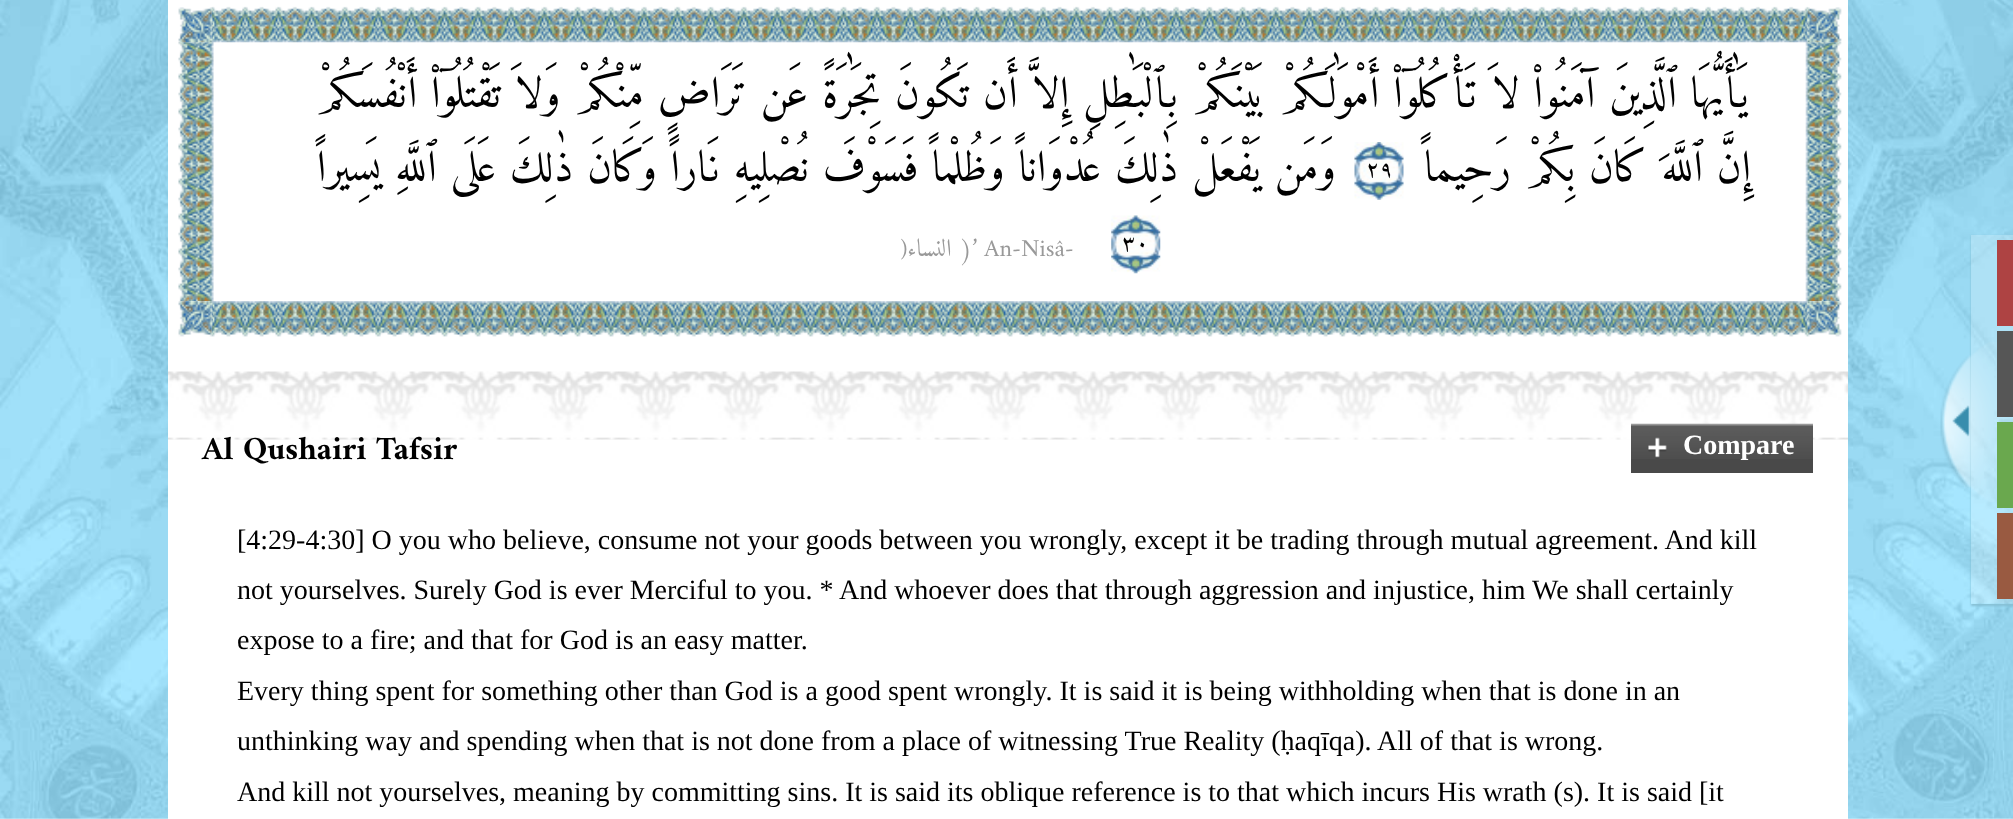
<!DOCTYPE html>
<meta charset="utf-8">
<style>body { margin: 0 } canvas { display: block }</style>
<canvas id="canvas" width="2013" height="819"></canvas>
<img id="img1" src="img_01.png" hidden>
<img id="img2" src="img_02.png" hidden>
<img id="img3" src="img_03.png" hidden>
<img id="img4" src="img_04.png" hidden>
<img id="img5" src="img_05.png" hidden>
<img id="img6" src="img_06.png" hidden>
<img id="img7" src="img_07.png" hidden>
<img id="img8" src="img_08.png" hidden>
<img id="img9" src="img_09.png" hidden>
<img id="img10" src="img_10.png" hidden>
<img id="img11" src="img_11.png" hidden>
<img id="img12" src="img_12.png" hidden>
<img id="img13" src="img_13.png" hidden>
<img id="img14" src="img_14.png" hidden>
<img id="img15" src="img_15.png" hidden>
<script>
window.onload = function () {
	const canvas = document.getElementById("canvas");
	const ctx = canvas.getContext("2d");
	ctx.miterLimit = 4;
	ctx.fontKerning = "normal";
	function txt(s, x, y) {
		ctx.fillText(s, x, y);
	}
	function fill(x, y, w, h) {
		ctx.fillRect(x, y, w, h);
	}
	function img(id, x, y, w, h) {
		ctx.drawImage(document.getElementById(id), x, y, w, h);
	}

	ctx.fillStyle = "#FFFFFF";
	fill(0, 0, 2013, 819);
	img("img1", 0, 0, 2013, 819);
	fill(168, 0, 1680, 819);
	img("img2", 178, 42, 1664, 260);
	img("img3", 178, 7, 34, 36);
	img("img4", 211, 6, 1597, 37);
	img("img5", 1807, 7, 35, 36);
	img("img6", 1354, 142, 50, 58);
	img("img7", 1111, 215, 50, 59);
	img("img8", 178, 301, 34, 36);
	img("img9", 211, 301, 1597, 36);
	img("img10", 1807, 301, 35, 36);
	img("img11", 168, 371, 1680, 69);
	ctx.fillStyle = "#494949";
	fill(1631, 459, 182, 14);
	img("img12", 1631, 423, 182, 36);
	img("img13", 1648, 437, 19, 22);
	ctx.save();
	ctx.beginPath();
	ctx.moveTo(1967, 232);
	ctx.lineTo(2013, 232);
	ctx.lineTo(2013, 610);
	ctx.lineTo(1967, 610);
	ctx.closePath();
	ctx.moveTo(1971, 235);
	ctx.lineTo(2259, 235);
	ctx.lineTo(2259, 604);
	ctx.lineTo(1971, 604);
	ctx.closePath();
	ctx.clip("evenodd");
	ctx.fillStyle = "#82BDD3";
	ctx.filter = "blur(1px)";
	ctx.beginPath();
	ctx.rect(1971, 236, 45, 370);
	ctx.fill();
	ctx.filter = "none";
	ctx.restore();
	img("img14", 1971, 235, 42, 370);
	ctx.fillStyle = "#AE4343";
	fill(1997, 240, 16, 86);
	img("img15", 1940, 342, 73, 160);
	ctx.fillStyle = "#565656";
	fill(1997, 331, 16, 86);
	ctx.fillStyle = "#6AA84E";
	fill(1997, 422, 16, 86);
	ctx.fillStyle = "#995A41";
	fill(1997, 513, 16, 86);
	ctx.wordSpacing = "0.9px";
	ctx.direction = "rtl";
	ctx.font = "43.75px Amiri";
	ctx.fillStyle = "#000000";
	txt("يَٰأَيُّهَا ٱلَّذِينَ آمَنُواْ لاَ تَأْكُلُوۤاْ أَمْوَٰلَكُمْ بَيْنَكُمْ بِٱلْبَٰطِلِ إِلاَّ أَن تَكُونَ تِجَٰرَةً عَن تَرَاضٍ مِّنْكُمْ وَلاَ تَقْتُلُوۤاْ أَنْفُسَكُمْ", 1751, 107);
	ctx.wordSpacing = "0.75px";
	txt("وَمَن يَفْعَلْ ذٰلِكَ عُدْوَاناً وَظُلْماً فَسَوْفَ نُصْلِيهِ نَاراً وَكَانَ ذٰلِكَ عَلَى ٱللَّهِ يَسِيراً", 1336, 181);
	ctx.wordSpacing = "0px";
	ctx.direction = "ltr";
	ctx.font = "23px Amiri";
	txt("٢٩", 1366, 176);
	ctx.wordSpacing = "0.75px";
	ctx.direction = "rtl";
	ctx.font = "43.75px Amiri";
	txt("إِنَّ ٱللَّهَ كَانَ بِكُمْ رَحِيماً", 1751, 181);
	ctx.wordSpacing = "2px";
	ctx.font = "24.5px Amiri";
	ctx.fillStyle = "#999999";
	txt("( النساء", 972, 256);
	ctx.wordSpacing = "0px";
	ctx.direction = "ltr";
	txt(")", 901, 256);
	txt("’ An-Nisâ-", 972, 256);
	ctx.font = "23px Amiri";
	ctx.fillStyle = "#000000";
	txt("٣٠", 1122, 250);
	ctx.font = "bold 32.75px Amiri";
	txt("Al Qushairi Tafsir", 202, 459);
	ctx.font = "bold 28px Liberation Serif";
	ctx.fillStyle = "#FFFFFF";
	txt("Compare", 1683, 454);
	ctx.font = "28px Liberation Serif";
	ctx.fillStyle = "#000000";
	txt("[4:29-4:30] O you who believe, consume not your goods between you wrongly, except it be trading through mutual agreement. And kill", 237, 549);
	txt("not yourselves. Surely God is ever Merciful to you. * And whoever does that through aggression and injustice, him We shall certainly", 237, 599);
	txt("expose to a fire; and that for God is an easy matter.", 237, 649);
	txt("Every thing spent for something other than God is a good spent wrongly. It is said it is being withholding when that is done in an", 237, 700);
	txt("unthinking way and spending when that is not done from a place of witnessing True Reality (ḥaqīqa). All of that is wrong.", 237, 750);
	txt("And kill not yourselves, meaning by committing sins. It is said its oblique reference is to that which incurs His wrath (s). It is said [it", 237, 801);
};
</script>
